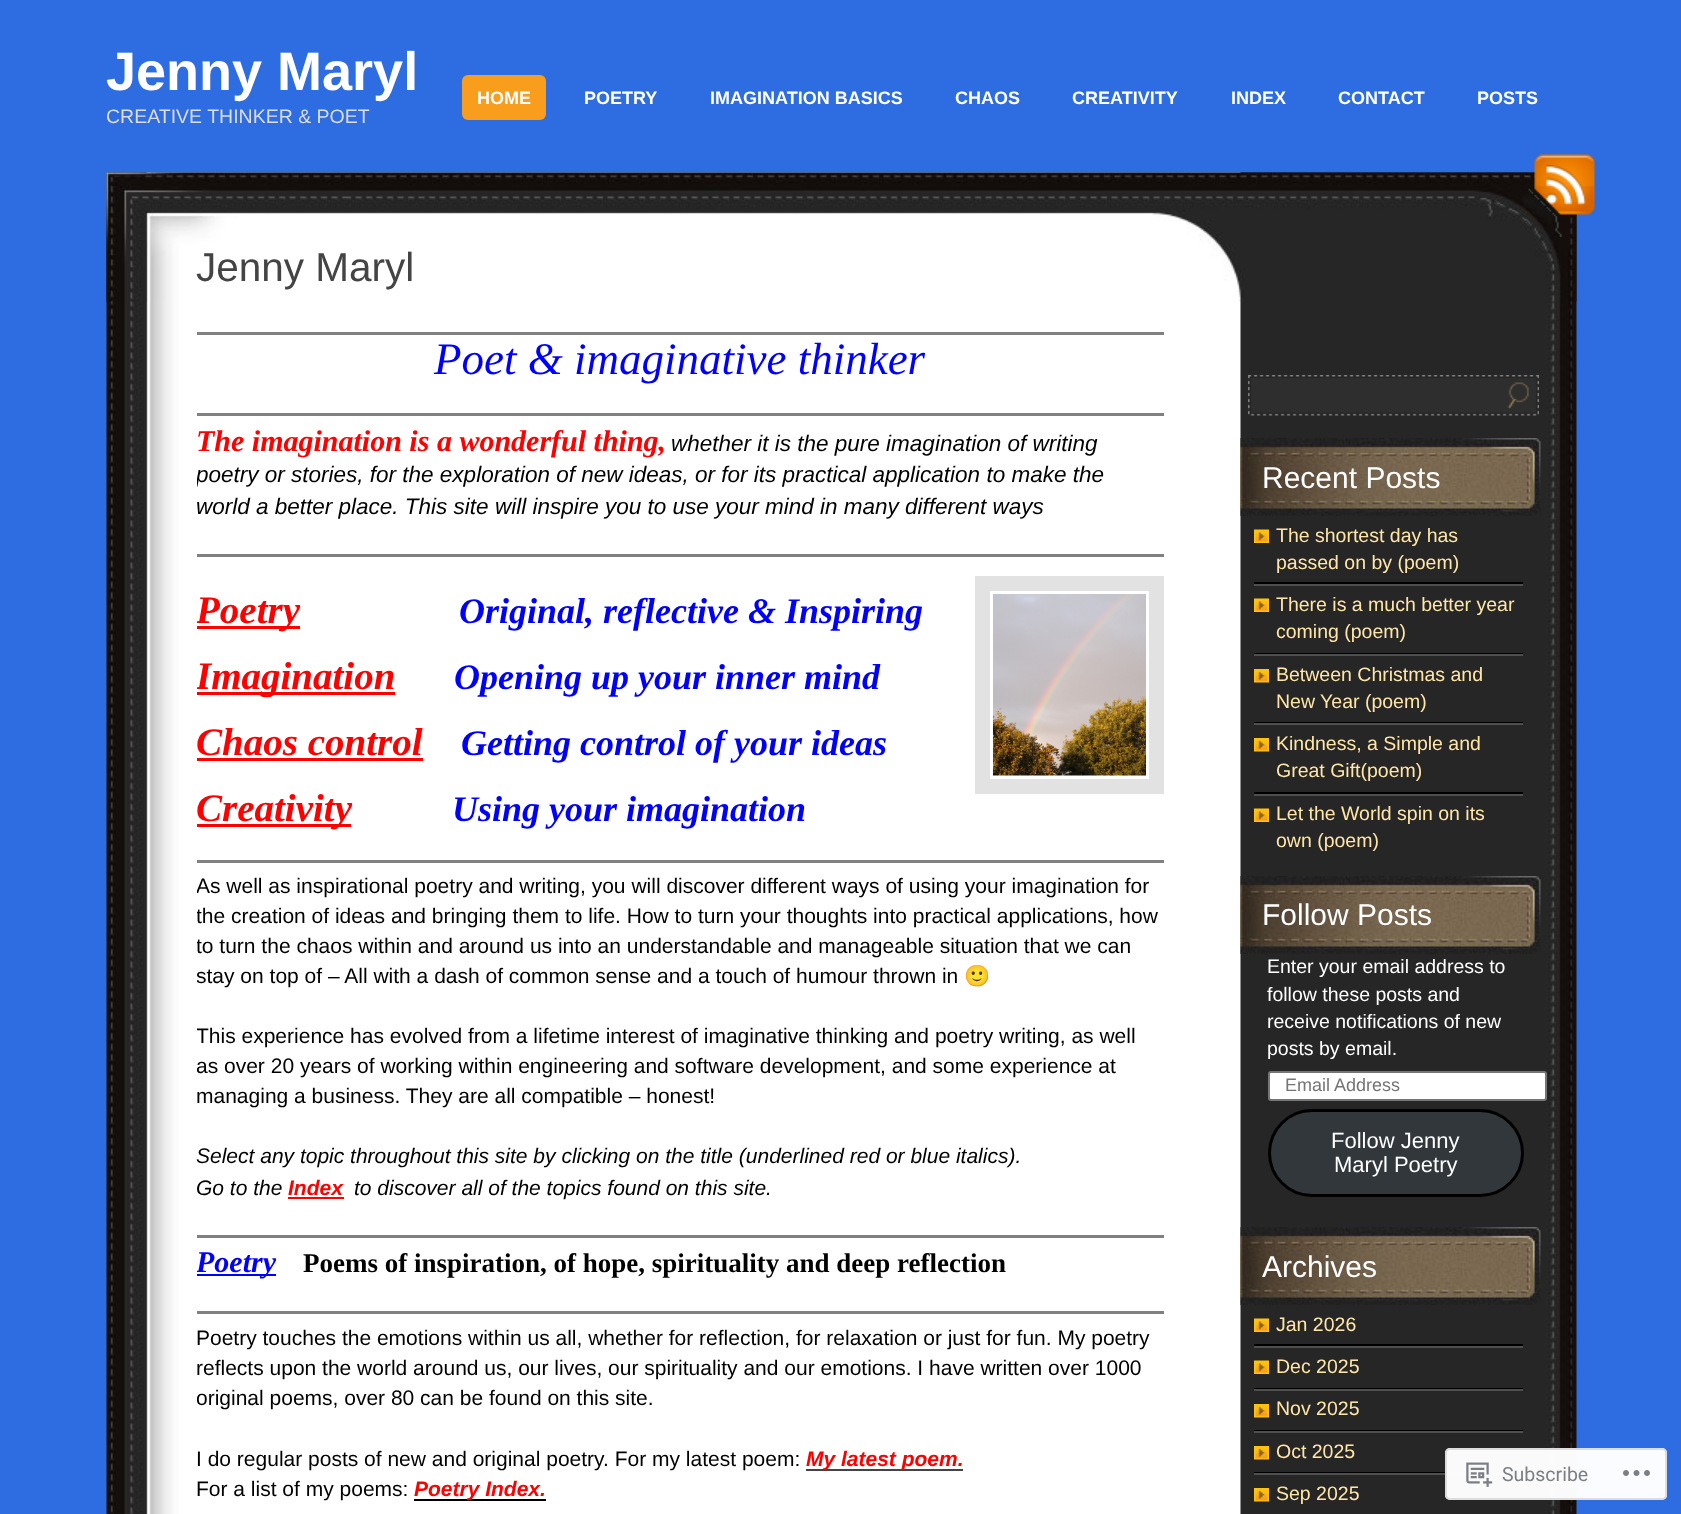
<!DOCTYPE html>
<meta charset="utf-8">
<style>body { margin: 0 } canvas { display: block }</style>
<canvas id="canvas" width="1681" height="1514"></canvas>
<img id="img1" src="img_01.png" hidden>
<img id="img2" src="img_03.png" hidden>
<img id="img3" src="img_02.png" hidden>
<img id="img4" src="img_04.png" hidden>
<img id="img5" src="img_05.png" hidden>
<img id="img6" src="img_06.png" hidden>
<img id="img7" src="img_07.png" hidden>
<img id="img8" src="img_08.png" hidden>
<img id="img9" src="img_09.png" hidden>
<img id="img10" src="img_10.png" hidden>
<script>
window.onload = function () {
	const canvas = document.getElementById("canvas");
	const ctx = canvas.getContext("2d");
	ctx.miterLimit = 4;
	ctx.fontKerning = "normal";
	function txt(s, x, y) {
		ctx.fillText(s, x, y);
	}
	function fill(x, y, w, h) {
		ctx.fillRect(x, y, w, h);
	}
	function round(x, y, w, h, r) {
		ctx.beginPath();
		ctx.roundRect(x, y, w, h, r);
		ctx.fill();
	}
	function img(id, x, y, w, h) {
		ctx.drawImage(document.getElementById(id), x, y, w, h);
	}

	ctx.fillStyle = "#2D6CE1";
	fill(0, 0, 1681, 1514);
	ctx.fillStyle = "#F89D1C";
	round(462, 75, 84, 45, 6);
	img("img1", 106, 172, 1471, 1342);
	img("img2", 106, 172, 1471, 130);
	img("img3", 1521, 154, 74, 83);
	ctx.fillStyle = "#808080";
	fill(197, 332, 967, 3);
	fill(197, 413, 967, 3);
	fill(197, 554, 967, 3);
	ctx.fillStyle = "#FF0000";
	fill(197, 626, 103, 3);
	ctx.strokeStyle = "#E2E2E2";
	ctx.lineWidth = 15;
	ctx.strokeRect(982.5, 583.5, 174, 203);
	img("img4", 993, 594, 153, 182);
	fill(197, 692, 198, 3);
	fill(197, 758, 226, 3);
	fill(197, 824, 154, 3);
	ctx.fillStyle = "#808080";
	fill(197, 860, 967, 3);
	ctx.fillStyle = "#FF0000";
	fill(288, 1197, 56, 2);
	ctx.fillStyle = "#808080";
	fill(197, 1235, 967, 3);
	ctx.fillStyle = "#0000FF";
	fill(197, 1274, 79, 2);
	ctx.fillStyle = "#808080";
	fill(197, 1311, 967, 3);
	ctx.fillStyle = "#444444";
	fill(806, 1469, 157, 2);
	ctx.fillStyle = "#000000";
	fill(414, 1499, 126, 2);
	img("img5", 1248, 375, 291, 41);
	img("img6", 1240, 438, 301, 78);
	img("img7", 1254, 529, 15, 14);
	fill(1254, 582, 269, 2);
	img("img7", 1254, 598, 15, 14);
	ctx.fillStyle = "#4F4F4F";
	fill(1254, 584, 269, 2);
	ctx.fillStyle = "#000000";
	fill(1254, 653, 269, 1);
	img("img8", 1254, 669, 15, 14);
	ctx.fillStyle = "#4F4F4F";
	fill(1254, 654, 269, 2);
	ctx.fillStyle = "#000000";
	fill(1254, 722, 269, 1);
	img("img8", 1254, 738, 15, 14);
	ctx.fillStyle = "#4F4F4F";
	fill(1254, 723, 269, 2);
	ctx.fillStyle = "#000000";
	fill(1254, 792, 269, 2);
	img("img7", 1254, 808, 15, 14);
	ctx.fillStyle = "#4F4F4F";
	fill(1254, 794, 269, 2);
	img("img6", 1240, 876, 301, 78);
	ctx.fillStyle = "#FFFFFF";
	ctx.beginPath();
	ctx.roundRect(1269, 1072, 277, 28, 2);
	ctx.fill();
	ctx.strokeStyle = "#767676";
	ctx.lineWidth = 2;
	ctx.stroke();
	ctx.fillStyle = "#32373C";
	ctx.beginPath();
	ctx.roundRect(1269.5, 1110.5, 253, 85, 42.5);
	ctx.fill();
	ctx.strokeStyle = "#000000";
	ctx.lineWidth = 3;
	ctx.stroke();
	img("img6", 1240, 1227, 301, 78);
	img("img7", 1254, 1318, 15, 14);
	ctx.fillStyle = "#000000";
	fill(1254, 1344, 269, 2);
	img("img7", 1254, 1360, 15, 14);
	ctx.fillStyle = "#4F4F4F";
	fill(1254, 1346, 269, 2);
	ctx.fillStyle = "#000000";
	fill(1254, 1388, 269, 1);
	img("img8", 1254, 1404, 15, 14);
	ctx.fillStyle = "#4F4F4F";
	fill(1254, 1389, 269, 2);
	ctx.fillStyle = "#000000";
	fill(1254, 1430, 269, 1);
	img("img8", 1254, 1446, 15, 14);
	ctx.fillStyle = "#4F4F4F";
	fill(1254, 1431, 269, 2);
	ctx.fillStyle = "#000000";
	fill(1254, 1472, 269, 1);
	img("img8", 1254, 1488, 15, 14);
	ctx.fillStyle = "#4F4F4F";
	fill(1254, 1473, 269, 2);
	ctx.fillStyle = "rgba(255, 255, 255, 0.98)";
	round(1445, 1448, 222, 52, 5);
	ctx.beginPath();
	ctx.roundRect(1446, 1449, 220, 50, 4);
	ctx.strokeStyle = "rgba(220, 220, 222, 0.98)";
	ctx.lineWidth = 2;
	ctx.stroke();
	img("img9", 1466, 1462, 27, 25);
	img("img10", 1623, 1470, 27, 6);
	ctx.font = "bold 54px Liberation Sans";
	ctx.fillStyle = "#FFFFFF";
	txt("Jenny Maryl", 106, 90);
	ctx.font = "19.5px Liberation Sans";
	ctx.fillStyle = "#DDDDDD";
	txt("CREATIVE THINKER & POET", 106, 123);
	ctx.font = "bold 18px Liberation Sans";
	ctx.fillStyle = "#FFFFFF";
	txt("HOME", 477, 104);
	txt("POETRY", 584, 104);
	txt("IMAGINATION BASICS", 710, 104);
	txt("CHAOS", 955, 104);
	txt("CREATIVITY", 1072, 104);
	txt("INDEX", 1231, 104);
	txt("CONTACT", 1338, 104);
	txt("POSTS", 1477, 104);
	ctx.font = "40.5px Liberation Sans";
	ctx.fillStyle = "#444444";
	txt("Jenny Maryl", 196, 281);
	ctx.font = "italic 45px Liberation Serif";
	ctx.fillStyle = "#0000FF";
	txt("Poet & imaginative thinker", 434, 374);
	ctx.font = "italic bold 30px Liberation Serif";
	ctx.fillStyle = "#FF0000";
	txt("The imagination is a wonderful thing,", 196, 451);
	ctx.font = "italic 22.5px Liberation Sans";
	ctx.fillStyle = "#000000";
	txt("whether it is the pure imagination of writing", 671, 451);
	ctx.save();
	ctx.beginPath();
	ctx.rect(197, 321, 967, 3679);
	ctx.clip();
	txt("poetry or stories, for the exploration of new ideas, or for its practical application to make the", 196, 482);
	ctx.restore();
	txt("world a better place. This site will inspire you to use your mind in many different ways", 196, 514);
	ctx.save();
	ctx.beginPath();
	ctx.rect(197, 321, 967, 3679);
	ctx.clip();
	ctx.font = "italic bold 39px Liberation Serif";
	ctx.fillStyle = "#FF0000";
	txt("Poetry", 196, 623);
	ctx.restore();
	ctx.font = "italic bold 36px Liberation Serif";
	ctx.fillStyle = "#0000FF";
	txt("Original, reflective & Inspiring", 459, 623);
	ctx.save();
	ctx.beginPath();
	ctx.rect(197, 321, 967, 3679);
	ctx.clip();
	ctx.font = "italic bold 39px Liberation Serif";
	ctx.fillStyle = "#FF0000";
	txt("Imagination", 196, 689);
	ctx.restore();
	txt("Opening up your inner mind", 454, 689);
	ctx.font = "italic bold 39px Liberation Serif";
	ctx.fillStyle = "#FF0000";
	txt("Chaos control", 196, 755);
	ctx.font = "italic bold 36px Liberation Serif";
	ctx.fillStyle = "#0000FF";
	txt("Getting control of your ideas", 461, 755);
	ctx.font = "italic bold 39px Liberation Serif";
	ctx.fillStyle = "#FF0000";
	txt("Creativity", 196, 821);
	ctx.font = "italic bold 36px Liberation Serif";
	ctx.fillStyle = "#0000FF";
	txt("Using your imagination", 452, 821);
	ctx.save();
	ctx.beginPath();
	ctx.rect(197, 321, 967, 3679);
	ctx.clip();
	ctx.font = "21px Liberation Sans";
	ctx.fillStyle = "#000000";
	txt("As well as inspirational poetry and writing, you will discover different ways of using your imagination for", 196, 893);
	txt("the creation of ideas and bringing them to life. How to turn your thoughts into practical applications, how", 196, 923);
	txt("to turn the chaos within and around us into an understandable and manageable situation that we can", 196, 953);
	txt("stay on top of – All with a dash of common sense and a touch of humour thrown in", 196, 983);
	ctx.restore();
	ctx.font = "21px Noto Color Emoji";
	ctx.fillStyle = "#000000";
	txt("🙂", 964, 983);
	ctx.save();
	ctx.beginPath();
	ctx.rect(197, 321, 967, 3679);
	ctx.clip();
	ctx.font = "21px Liberation Sans";
	txt("This experience has evolved from a lifetime interest of imaginative thinking and poetry writing, as well", 196, 1043);
	txt("as over 20 years of working within engineering and software development, and some experience at", 196, 1073);
	ctx.restore();
	ctx.font = "21px Liberation Sans";
	txt("managing a business. They are all compatible – honest!", 196, 1103);
	ctx.font = "italic 21px Liberation Sans";
	txt("Select any topic throughout this site by clicking on the title (underlined red or blue italics).", 196, 1163);
	ctx.save();
	ctx.beginPath();
	ctx.rect(197, 321, 967, 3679);
	ctx.clip();
	txt("Go to the", 196, 1195);
	ctx.restore();
	ctx.font = "italic bold 21px Liberation Sans";
	ctx.fillStyle = "#FF0000";
	txt("Index", 288, 1195);
	ctx.font = "italic 21px Liberation Sans";
	ctx.fillStyle = "#000000";
	txt("to discover all of the topics found on this site.", 354, 1195);
	ctx.save();
	ctx.beginPath();
	ctx.rect(197, 321, 967, 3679);
	ctx.clip();
	ctx.font = "italic bold 30px Liberation Serif";
	ctx.fillStyle = "#0000FF";
	txt("Poetry", 196, 1272);
	ctx.restore();
	ctx.font = "bold 27px Liberation Serif";
	txt("Poems of inspiration, of hope, spirituality and deep reflection", 303, 1272);
	ctx.font = "21px Liberation Sans";
	txt("Poetry touches the emotions within us all, whether for reflection, for relaxation or just for fun. My poetry", 196, 1345);
	txt("reflects upon the world around us, our lives, our spirituality and our emotions. I have written over 1000", 196, 1375);
	ctx.save();
	ctx.beginPath();
	ctx.rect(197, 321, 967, 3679);
	ctx.clip();
	txt("original poems, over 80 can be found on this site.", 196, 1405);
	ctx.restore();
	txt("I do regular posts of new and original poetry. For my latest poem:", 196, 1466);
	ctx.font = "italic bold 21px Liberation Sans";
	ctx.fillStyle = "#FF0000";
	txt("My latest poem.", 806, 1466);
	ctx.font = "21px Liberation Sans";
	ctx.fillStyle = "#000000";
	txt("For a list of my poems:", 196, 1496);
	ctx.font = "italic bold 21px Liberation Sans";
	ctx.fillStyle = "#FF0000";
	txt("Poetry Index.", 414, 1496);
	ctx.fillStyle = "#000000";
	fill(540, 1499, 6, 2);
	ctx.font = "30px Liberation Sans";
	ctx.fillStyle = "#FFFFFF";
	txt("Recent Posts", 1262, 488);
	ctx.font = "19.5px Liberation Sans";
	ctx.fillStyle = "#FFE6A8";
	txt("The shortest day has", 1276, 542);
	txt("passed on by (poem)", 1276, 569);
	txt("There is a much better year", 1276, 611);
	txt("coming (poem)", 1276, 638);
	txt("Between Christmas and", 1276, 681);
	txt("New Year (poem)", 1276, 708);
	txt("Kindness, a Simple and", 1276, 750);
	txt("Great Gift(poem)", 1276, 777);
	txt("Let the World spin on its", 1276, 820);
	txt("own (poem)", 1276, 847);
	ctx.font = "30px Liberation Sans";
	ctx.fillStyle = "#FFFFFF";
	txt("Follow Posts", 1262, 925);
	ctx.font = "19.5px Liberation Sans";
	txt("Enter your email address to", 1267, 973);
	txt("follow these posts and", 1267, 1001);
	txt("receive notifications of new", 1267, 1028);
	txt("posts by email.", 1267, 1055);
	ctx.font = "18px Liberation Sans";
	ctx.fillStyle = "#757575";
	txt("Email Address", 1285, 1091);
	ctx.font = "22px Liberation Sans";
	ctx.fillStyle = "#FFFFFF";
	txt("Follow Jenny", 1331, 1148);
	txt("Maryl Poetry", 1334, 1172);
	ctx.font = "30px Liberation Sans";
	txt("Archives", 1262, 1277);
	ctx.font = "19.5px Liberation Sans";
	ctx.fillStyle = "#FFE6A8";
	txt("Jan 2026", 1276, 1331);
	txt("Dec 2025", 1276, 1373);
	txt("Nov 2025", 1276, 1415);
	txt("Oct 2025", 1276, 1458);
	txt("Sep 2025", 1276, 1500);
	ctx.font = "19.5px Roboto";
	ctx.fillStyle = "#7B7F84";
	txt("Subscribe", 1502, 1481);
};
</script>
